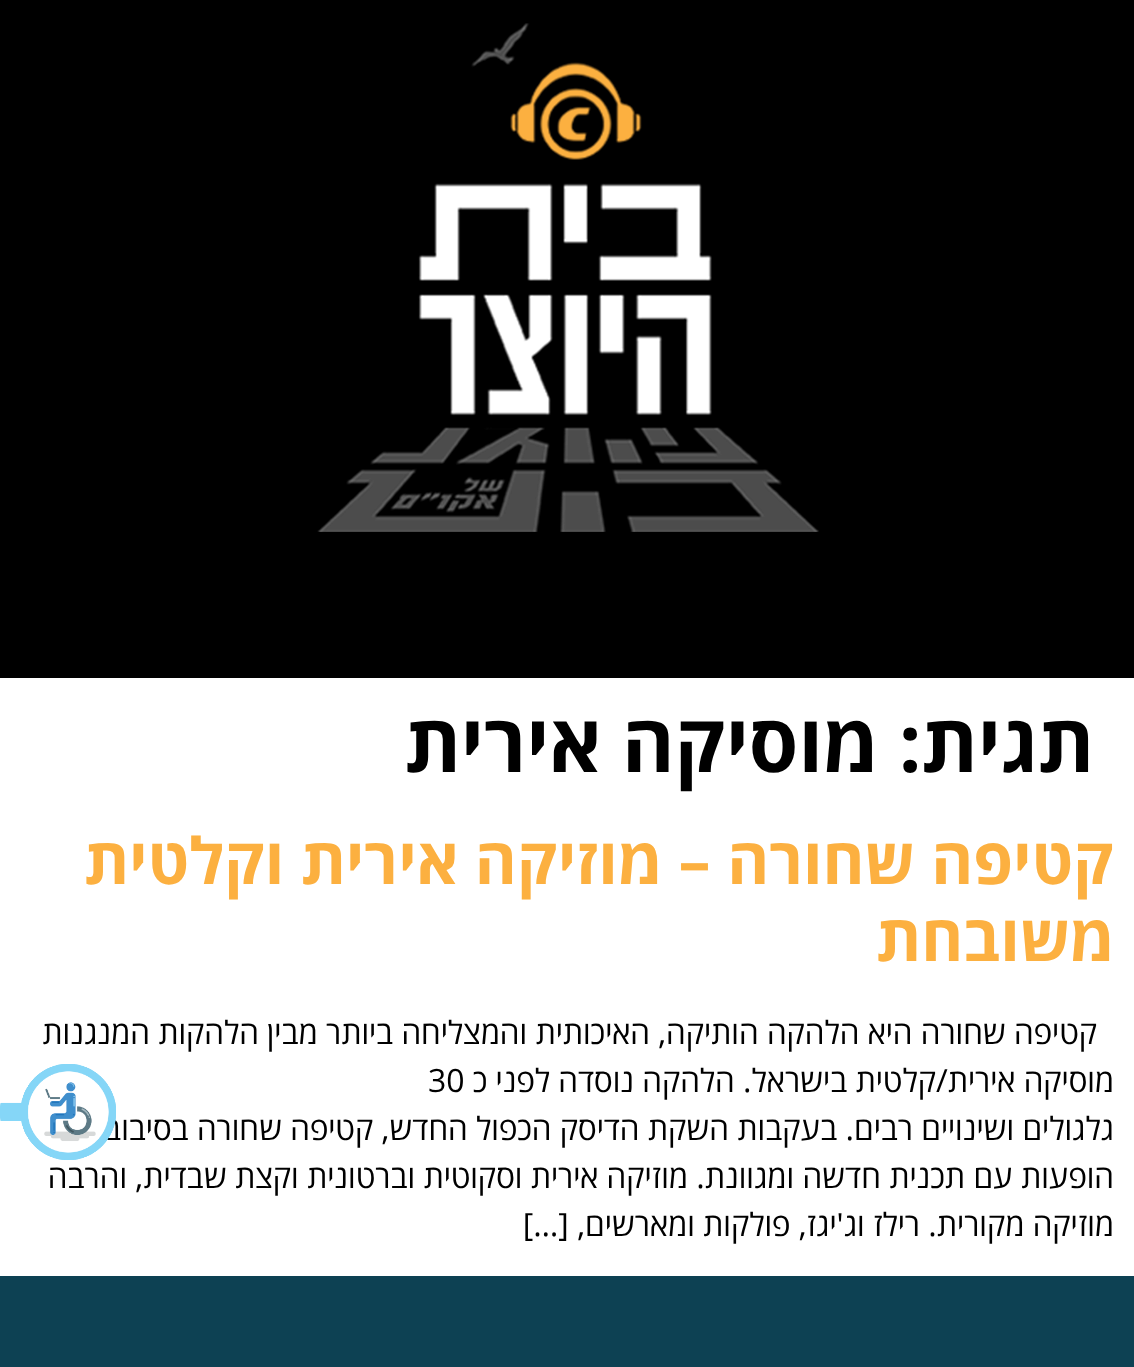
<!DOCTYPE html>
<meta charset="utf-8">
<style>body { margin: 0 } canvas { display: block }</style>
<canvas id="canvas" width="1134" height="1367"></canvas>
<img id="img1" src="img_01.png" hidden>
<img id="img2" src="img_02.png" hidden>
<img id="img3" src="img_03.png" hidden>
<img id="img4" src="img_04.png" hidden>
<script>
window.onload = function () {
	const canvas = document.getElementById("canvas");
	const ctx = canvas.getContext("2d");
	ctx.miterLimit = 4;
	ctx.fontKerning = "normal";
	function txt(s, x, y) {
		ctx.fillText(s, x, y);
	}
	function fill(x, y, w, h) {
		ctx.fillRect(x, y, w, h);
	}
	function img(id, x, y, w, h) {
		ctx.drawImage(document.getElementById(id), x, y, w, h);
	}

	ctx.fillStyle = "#FFFFFF";
	fill(0, 0, 1134, 1367);
	ctx.fillStyle = "#000000";
	fill(0, 0, 1134, 678);
	img("img1", 317, 23, 502, 509);
	ctx.fillStyle = "#0D4153";
	fill(0, 1276, 1134, 91);
	ctx.direction = "rtl";
	ctx.font = "bold 80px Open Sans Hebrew";
	ctx.fillStyle = "#000000";
	txt("תגית:", 1094, 772);
	txt("מוסיקה אירית", 878, 772);
	ctx.font = "bold 64px Open Sans Hebrew";
	ctx.fillStyle = "#FCB040";
	txt("קטיפה שחורה – מוזיקה אירית וקלטית", 1114, 884);
	txt("משובחת", 1114, 961);
	ctx.font = "32px Open Sans Hebrew";
	ctx.fillStyle = "#000000";
	txt("קטיפה שחורה היא הלהקה הותיקה, האיכותית והמצליחה ביותר מבין הלהקות המנגנות", 1097, 1044);
	txt("מוסיקה אירית/קלטית בישראל. הלהקה נוסדה לפני כ", 1114, 1092);
	ctx.direction = "ltr";
	txt("30", 428, 1092);
	ctx.direction = "rtl";
	txt("גלגולים ושינויים רבים. בעקבות השקת הדיסק הכפול החדש, קטיפה שחורה בסיבוב", 1114, 1140);
	txt("הופעות עם תכנית חדשה ומגוונת. מוזיקה אירית וסקוטית וברטונית וקצת שבדית, והרבה", 1114, 1188);
	txt("מוזיקה מקורית. רילז וג'יגז, פולקות ומארשים, […]", 1114, 1236);
	img("img2", 0, 1064, 116, 96);
	img("img3", 0, 1064, 116, 96);
	img("img4", 0, 1064, 116, 96);
};
</script>
